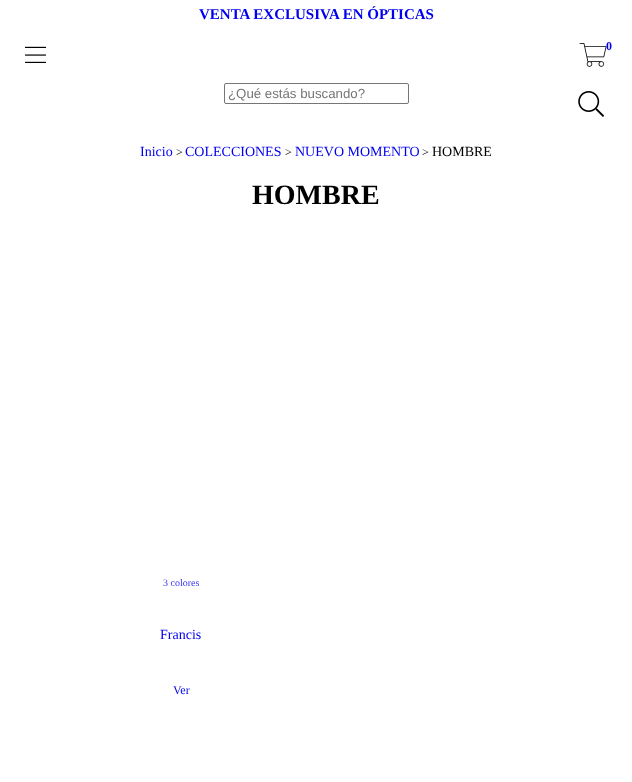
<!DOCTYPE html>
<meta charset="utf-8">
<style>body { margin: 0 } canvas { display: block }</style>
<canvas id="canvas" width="632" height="782"></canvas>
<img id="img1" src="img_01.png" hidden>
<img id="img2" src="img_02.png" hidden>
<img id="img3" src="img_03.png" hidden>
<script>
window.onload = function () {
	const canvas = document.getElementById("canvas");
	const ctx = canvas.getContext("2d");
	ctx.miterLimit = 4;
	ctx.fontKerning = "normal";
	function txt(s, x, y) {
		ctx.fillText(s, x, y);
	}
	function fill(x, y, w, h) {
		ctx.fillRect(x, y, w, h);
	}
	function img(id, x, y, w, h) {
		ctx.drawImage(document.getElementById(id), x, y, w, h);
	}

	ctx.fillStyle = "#FFFFFF";
	fill(0, 0, 632, 782);
	img("img1", 25, 46, 21, 17);
	img("img2", 579, 43, 28, 24);
	ctx.beginPath();
	ctx.roundRect(224.5, 83.5, 184, 20, 1.5);
	ctx.strokeStyle = "#767676";
	ctx.stroke();
	img("img3", 578, 91, 26, 26);
	ctx.font = "bold 15px Liberation Serif";
	ctx.fillStyle = "#0000EE";
	txt("VENTA EXCLUSIVA EN ÓPTICAS", 199, 19);
	ctx.font = "bold 12px Liberation Serif";
	txt("0", 606, 50);
	ctx.font = "13.25px Liberation Sans";
	ctx.fillStyle = "#757575";
	txt("¿Qué estás buscando?", 228, 98);
	ctx.font = "14px Liberation Serif";
	ctx.fillStyle = "#0000EE";
	txt("Inicio", 140, 156);
	ctx.font = "12px Liberation Serif";
	ctx.fillStyle = "#000000";
	txt(">", 176, 156);
	ctx.font = "14px Liberation Serif";
	ctx.fillStyle = "#0000EE";
	txt("COLECCIONES", 185, 156);
	ctx.font = "12px Liberation Serif";
	ctx.fillStyle = "#000000";
	txt(">", 285, 156);
	ctx.font = "14px Liberation Serif";
	ctx.fillStyle = "#0000EE";
	txt("NUEVO MOMENTO", 295, 156);
	ctx.font = "12px Liberation Serif";
	ctx.fillStyle = "#000000";
	txt(">", 422, 156);
	ctx.font = "14px Liberation Serif";
	txt("HOMBRE", 432, 156);
	ctx.font = "bold 28px Liberation Serif";
	txt("HOMBRE", 252, 204);
	ctx.font = "10px Liberation Serif";
	ctx.fillStyle = "#3333F1";
	txt("3 colores", 163, 586);
	ctx.font = "14px Liberation Serif";
	ctx.fillStyle = "#0000EE";
	txt("Francis", 160, 639);
	ctx.font = "12px Liberation Serif";
	txt("Ver", 173, 694);
};
</script>
